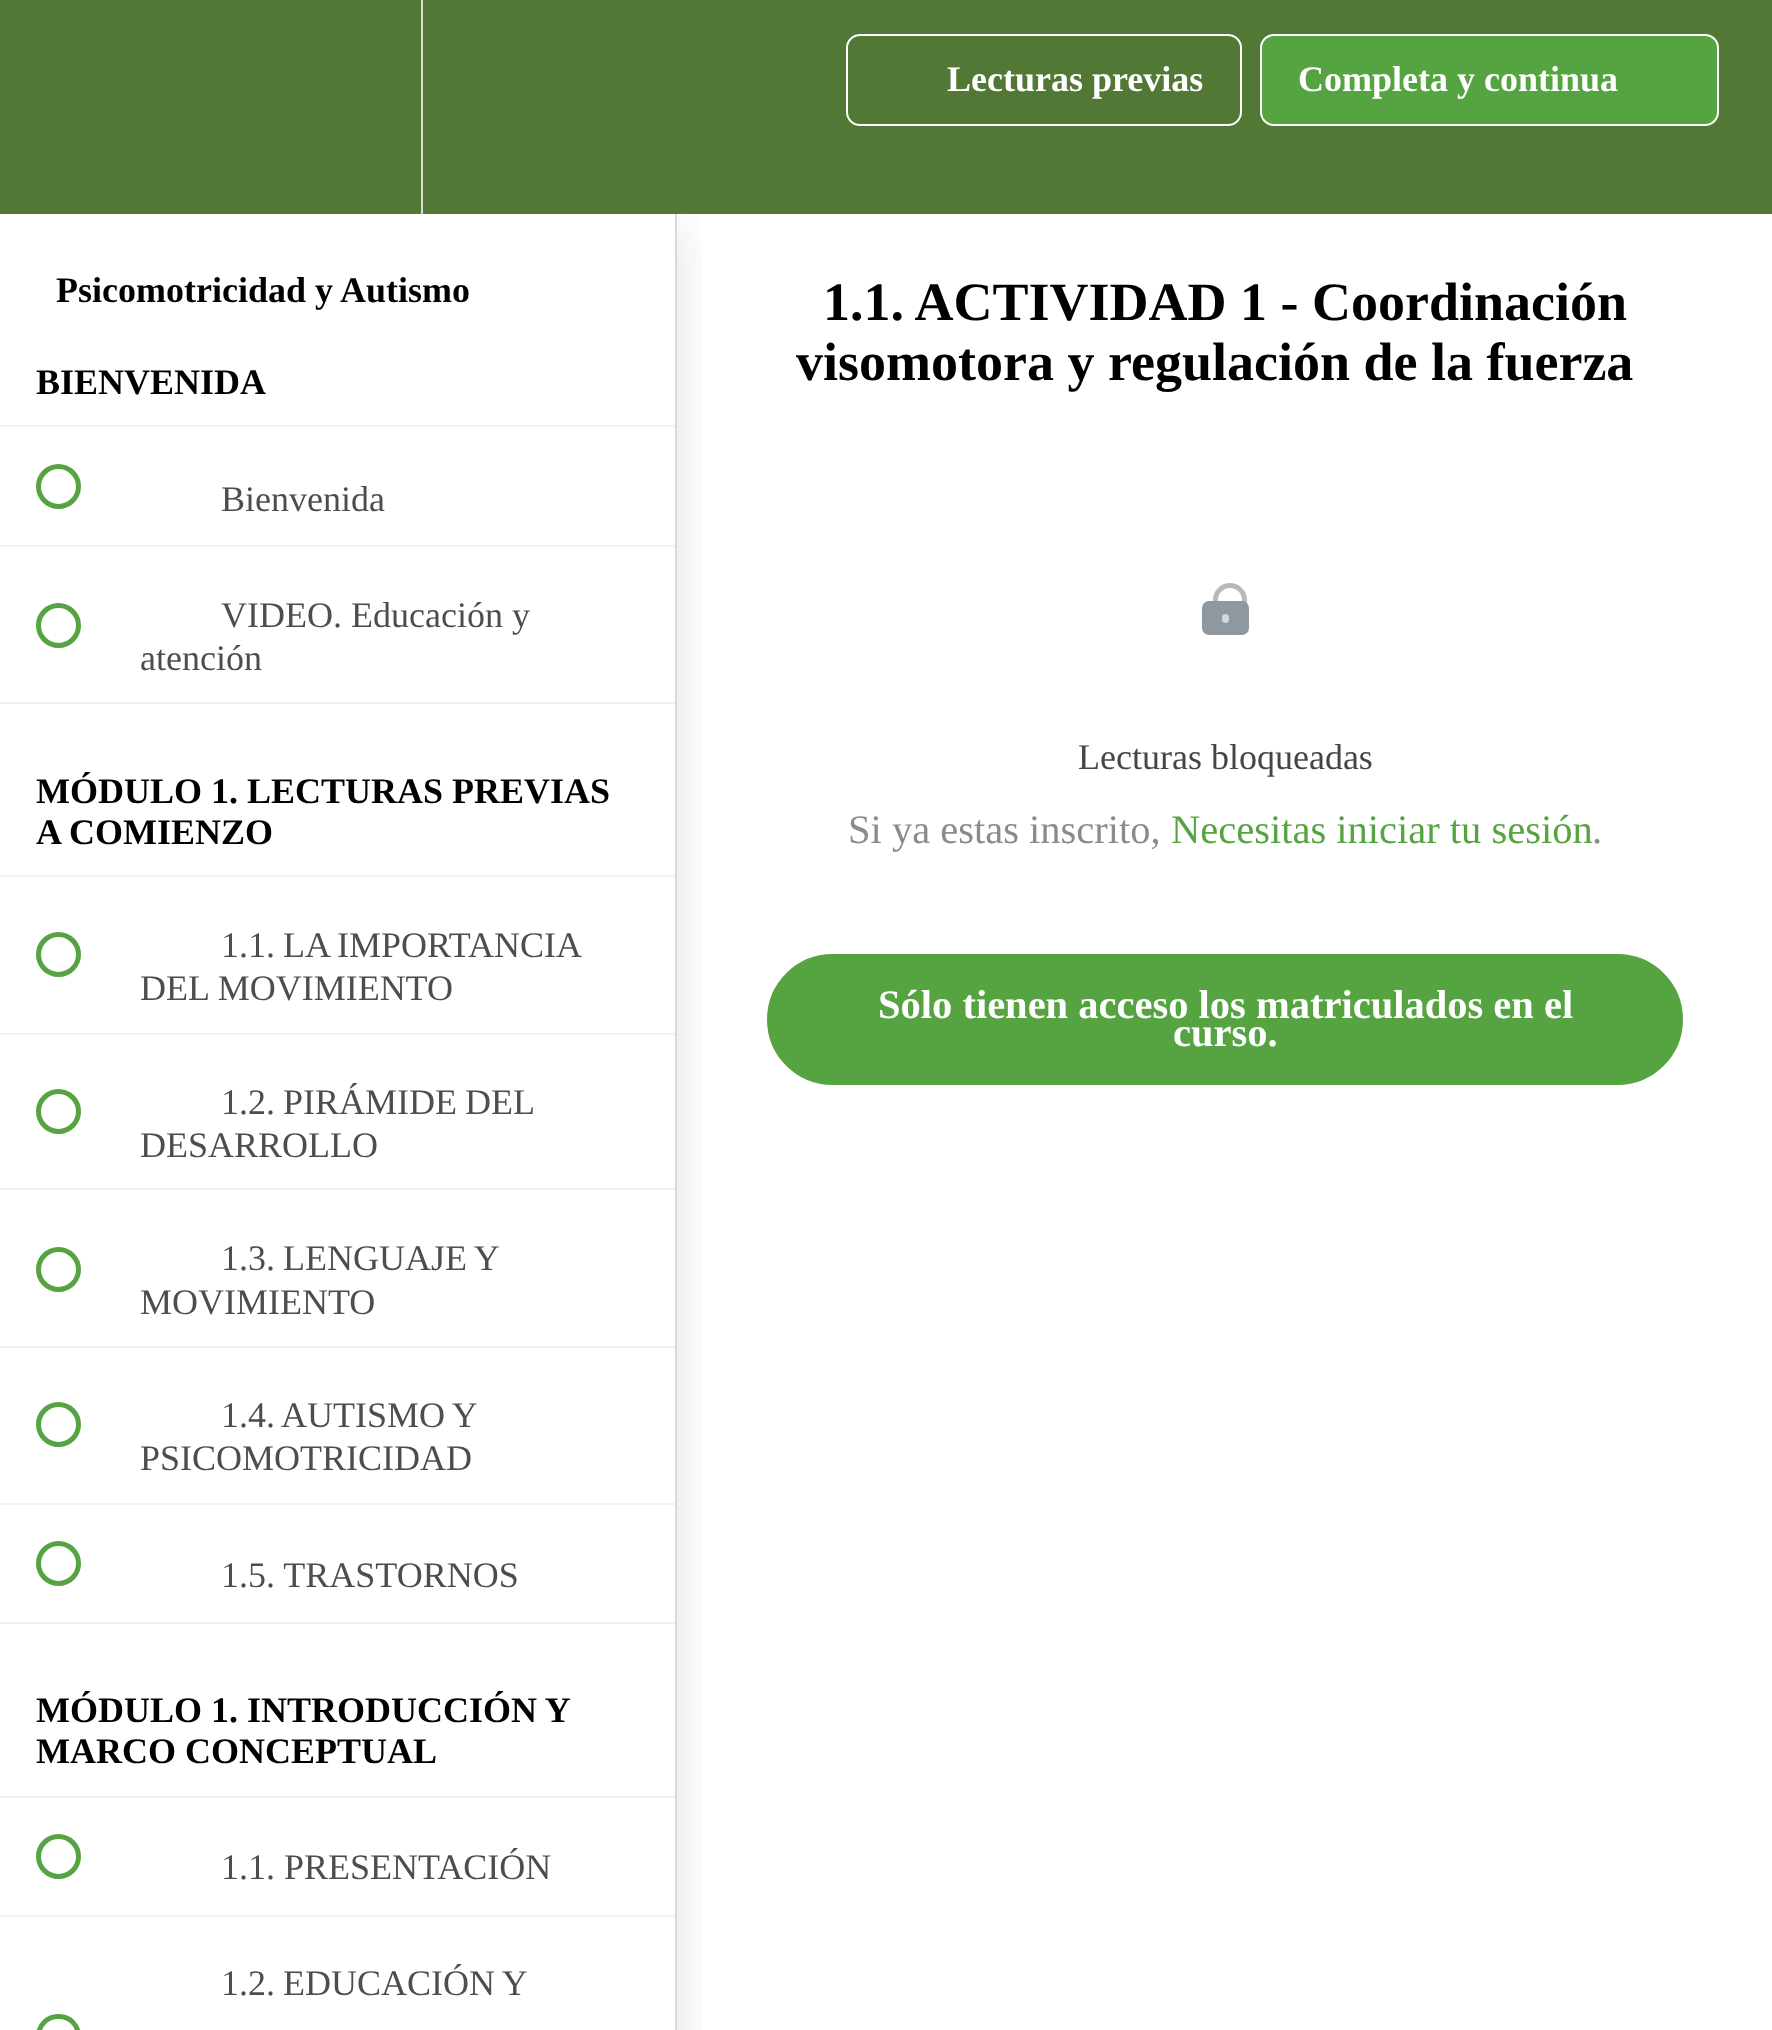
<!DOCTYPE html>
<meta charset="utf-8">
<style>body { margin: 0 } canvas { display: block }</style>
<canvas id="canvas" width="1772" height="2030"></canvas>
<script>
window.onload = function () {
	const canvas = document.getElementById("canvas");
	const ctx = canvas.getContext("2d");
	ctx.miterLimit = 4;
	ctx.fontKerning = "normal";
	function txt(s, x, y) {
		ctx.fillText(s, x, y);
	}
	function fill(x, y, w, h) {
		ctx.fillRect(x, y, w, h);
	}
	function round(x, y, w, h, r) {
		ctx.beginPath();
		ctx.roundRect(x, y, w, h, r);
		ctx.fill();
	}

	ctx.fillStyle = "#FFFFFF";
	fill(0, 0, 1772, 2030);
	ctx.save();
	ctx.beginPath();
	ctx.rect(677, 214, 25, 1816);
	ctx.clip();
	ctx.fillStyle = "rgba(32, 39, 45, 0.15)";
	ctx.filter = "blur(22.5px)";
	ctx.beginPath();
	ctx.rect(0, 227, 677, 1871);
	ctx.fill();
	ctx.filter = "none";
	ctx.restore();
	ctx.fillStyle = "#527836";
	fill(0, 0, 1772, 214);
	ctx.fillStyle = "#D7DADB";
	fill(421, 0, 2, 214);
	ctx.beginPath();
	ctx.roundRect(847, 35, 394, 90, 13);
	ctx.strokeStyle = "#FFFFFF";
	ctx.lineWidth = 2;
	ctx.stroke();
	ctx.fillStyle = "#56A441";
	ctx.beginPath();
	ctx.roundRect(1261, 35, 457, 90, 13);
	ctx.fill();
	ctx.stroke();
	ctx.fillStyle = "#D7DADB";
	fill(675, 214, 2, 1816);
	ctx.fillStyle = "#EEF6EC";
	fill(0, 425, 675, 2);
	fill(0, 545, 675, 2);
	ctx.beginPath();
	ctx.arc(58.5, 486.5, 20, 0, Math.PI * 2);
	ctx.strokeStyle = "#56A441";
	ctx.lineWidth = 5;
	ctx.stroke();
	fill(0, 702, 675, 2);
	ctx.beginPath();
	ctx.arc(58.5, 625.5, 20, 0, Math.PI * 2);
	ctx.stroke();
	fill(0, 875, 675, 2);
	fill(0, 1033, 675, 2);
	ctx.beginPath();
	ctx.arc(58.5, 954.5, 20, 0, Math.PI * 2);
	ctx.stroke();
	fill(0, 1188, 675, 2);
	ctx.beginPath();
	ctx.arc(58.5, 1111.5, 20, 0, Math.PI * 2);
	ctx.stroke();
	fill(0, 1346, 675, 2);
	ctx.beginPath();
	ctx.arc(58.5, 1269.5, 20, 0, Math.PI * 2);
	ctx.stroke();
	fill(0, 1503, 675, 2);
	ctx.beginPath();
	ctx.arc(58.5, 1424.5, 20, 0, Math.PI * 2);
	ctx.stroke();
	fill(0, 1622, 675, 2);
	ctx.beginPath();
	ctx.arc(58.5, 1563.5, 20, 0, Math.PI * 2);
	ctx.stroke();
	fill(0, 1796, 675, 2);
	fill(0, 1915, 675, 2);
	ctx.beginPath();
	ctx.arc(58.5, 1856.5, 20, 0, Math.PI * 2);
	ctx.stroke();
	ctx.beginPath();
	ctx.roundRect(38.5, 2016.5, 40, 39, 20);
	ctx.stroke();
	ctx.beginPath();
	ctx.roundRect(1215.5, 585.5, 29, 44, 14.5);
	ctx.strokeStyle = "#B5BABF";
	ctx.stroke();
	ctx.fillStyle = "#8F989F";
	round(1202, 601, 47, 34, 7);
	ctx.fillStyle = "#D3D7DC";
	round(1222, 614, 7, 9, 3.5);
	ctx.fillStyle = "#56A441";
	ctx.beginPath();
	ctx.roundRect(768, 955, 914, 129, 64.5);
	ctx.fill();
	ctx.strokeStyle = "#56A441";
	ctx.lineWidth = 2;
	ctx.stroke();
	ctx.font = "bold 36px Liberation Serif";
	ctx.fillStyle = "#FFFFFF";
	txt("Lecturas previas", 947, 91);
	txt("Completa y continua", 1298, 91);
	ctx.fillStyle = "#000000";
	txt("Psicomotricidad y Autismo", 56, 302);
	txt("BIENVENIDA", 36, 394);
	ctx.font = "36px Liberation Serif";
	ctx.fillStyle = "#4D4D4D";
	txt("Bienvenida", 221, 511);
	txt("VIDEO. Educación y", 221, 627);
	txt("atención", 140, 670);
	ctx.font = "bold 36px Liberation Serif";
	ctx.fillStyle = "#000000";
	txt("MÓDULO 1. LECTURAS PREVIAS", 36, 803);
	txt("A COMIENZO", 36, 844);
	ctx.wordSpacing = "-1px";
	ctx.font = "36px Liberation Serif";
	ctx.fillStyle = "#4D4D4D";
	txt("1.1. LA IMPORTANCIA", 221, 957);
	ctx.wordSpacing = "0px";
	txt("DEL MOVIMIENTO", 140, 1000);
	ctx.wordSpacing = "-1px";
	txt("1.2. PIRÁMIDE DEL", 221, 1114);
	ctx.wordSpacing = "0px";
	txt("DESARROLLO", 140, 1157);
	ctx.wordSpacing = "-1px";
	txt("1.3. LENGUAJE Y", 221, 1270);
	ctx.wordSpacing = "0px";
	txt("MOVIMIENTO", 140, 1314);
	ctx.wordSpacing = "-1px";
	txt("1.4. AUTISMO Y", 221, 1427);
	ctx.wordSpacing = "0px";
	txt("PSICOMOTRICIDAD", 140, 1470);
	txt("1.5. TRASTORNOS", 221, 1587);
	ctx.font = "bold 36px Liberation Serif";
	ctx.fillStyle = "#000000";
	txt("MÓDULO 1. INTRODUCCIÓN Y", 36, 1722);
	txt("MARCO CONCEPTUAL", 36, 1763);
	ctx.font = "36px Liberation Serif";
	ctx.fillStyle = "#4D4D4D";
	txt("1.1. PRESENTACIÓN", 221, 1879);
	ctx.wordSpacing = "-1px";
	txt("1.2. EDUCACIÓN Y", 221, 1995);
	ctx.wordSpacing = "0px";
	ctx.font = "bold 54px Liberation Serif";
	ctx.fillStyle = "#000000";
	txt("1.1. ACTIVIDAD 1 - Coordinación", 823, 320);
	txt("visomotora y regulación de la fuerza", 796, 380);
	ctx.font = "36px Liberation Serif";
	ctx.fillStyle = "#454545";
	txt("Lecturas bloqueadas", 1078, 769);
	ctx.font = "40.5px Liberation Serif";
	ctx.fillStyle = "#8B8B8B";
	txt("Si ya estas inscrito,", 848, 843);
	ctx.fillStyle = "#56A441";
	txt("Necesitas iniciar tu sesión", 1171, 843);
	ctx.fillStyle = "#8B8B8B";
	txt(".", 1592, 843);
	ctx.font = "bold 40.5px Liberation Serif";
	ctx.fillStyle = "#FFFFFF";
	txt("Sólo tienen acceso los matriculados en el", 878, 1018);
	txt("curso.", 1173, 1046);
};
</script>
